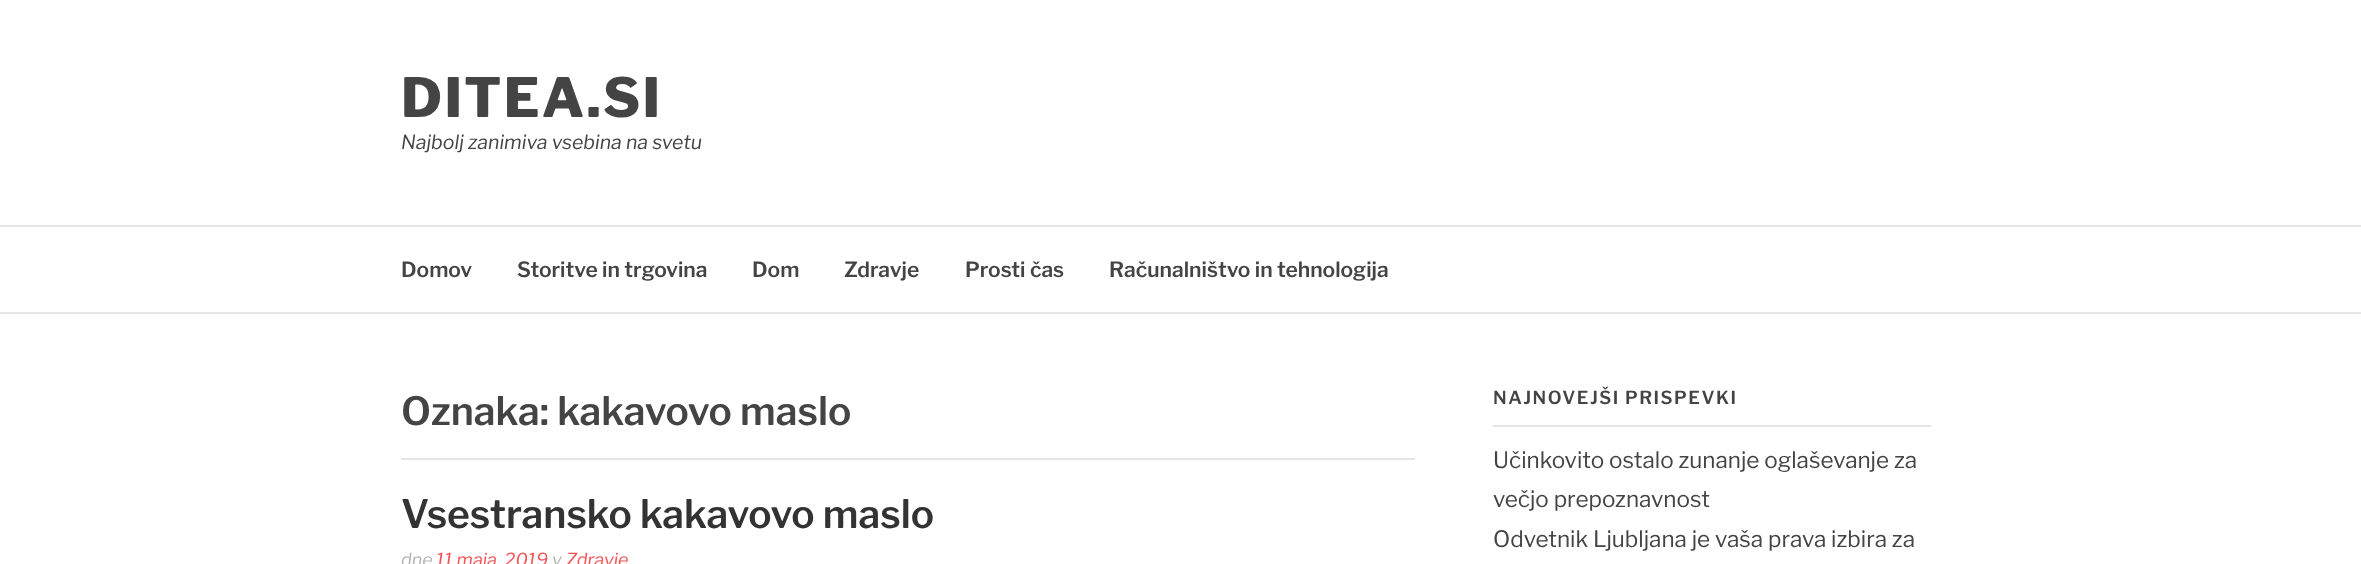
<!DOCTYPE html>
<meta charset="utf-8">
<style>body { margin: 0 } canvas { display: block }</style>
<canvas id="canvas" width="2361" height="564"></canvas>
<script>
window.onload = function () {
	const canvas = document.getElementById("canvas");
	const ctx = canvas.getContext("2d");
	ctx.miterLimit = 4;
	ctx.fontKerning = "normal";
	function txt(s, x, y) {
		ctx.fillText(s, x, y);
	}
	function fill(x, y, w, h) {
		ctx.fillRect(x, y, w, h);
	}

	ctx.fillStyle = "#FFFFFF";
	fill(0, 0, 2361, 564);
	ctx.fillStyle = "#E6E6E6";
	fill(0, 225, 2361, 2);
	fill(0, 312, 2361, 2);
	ctx.fillStyle = "#E5E5E5";
	fill(401, 458, 1014, 2);
	fill(1493, 425, 438, 2);
	ctx.letterSpacing = "2.25px";
	ctx.font = "800 54px Libre Franklin";
	ctx.fillStyle = "#444444";
	txt("DITEA.SI", 401, 117);
	ctx.letterSpacing = "0px";
	ctx.font = "italic 19.5px Libre Franklin";
	txt("Najbolj zanimiva vsebina na svetu", 401, 149);
	ctx.font = "600 21px Libre Franklin";
	txt("Domov", 401, 277);
	txt("Storitve in trgovina", 517, 277);
	txt("Dom", 752, 277);
	txt("Zdravje", 844, 277);
	txt("Prosti čas", 965, 277);
	txt("Računalništvo in tehnologija", 1109, 277);
	ctx.font = "600 39px Libre Franklin";
	txt("Oznaka: kakavovo maslo", 401, 425);
	ctx.fillStyle = "#333333";
	txt("Vsestransko kakavovo maslo", 401, 528);
	ctx.font = "italic 18px Libre Franklin";
	ctx.fillStyle = "#B4B4B4";
	txt("dne", 401, 566);
	ctx.fillStyle = "#F75357";
	txt("11 maja, 2019", 436, 566);
	ctx.fillStyle = "#B4B4B4";
	txt("v", 552, 566);
	ctx.fillStyle = "#F75357";
	txt("Zdravje", 566, 566);
	ctx.letterSpacing = "1.5px";
	ctx.font = "600 18px Libre Franklin";
	ctx.fillStyle = "#444444";
	txt("NAJNOVEJŠI PRISPEVKI", 1493, 404);
	ctx.letterSpacing = "0px";
	ctx.font = "22.5px Libre Franklin";
	txt("Učinkovito ostalo zunanje oglaševanje za", 1493, 468);
	txt("večjo prepoznavnost", 1493, 507);
	txt("Odvetnik Ljubljana je vaša prava izbira za", 1493, 547);
};
</script>
